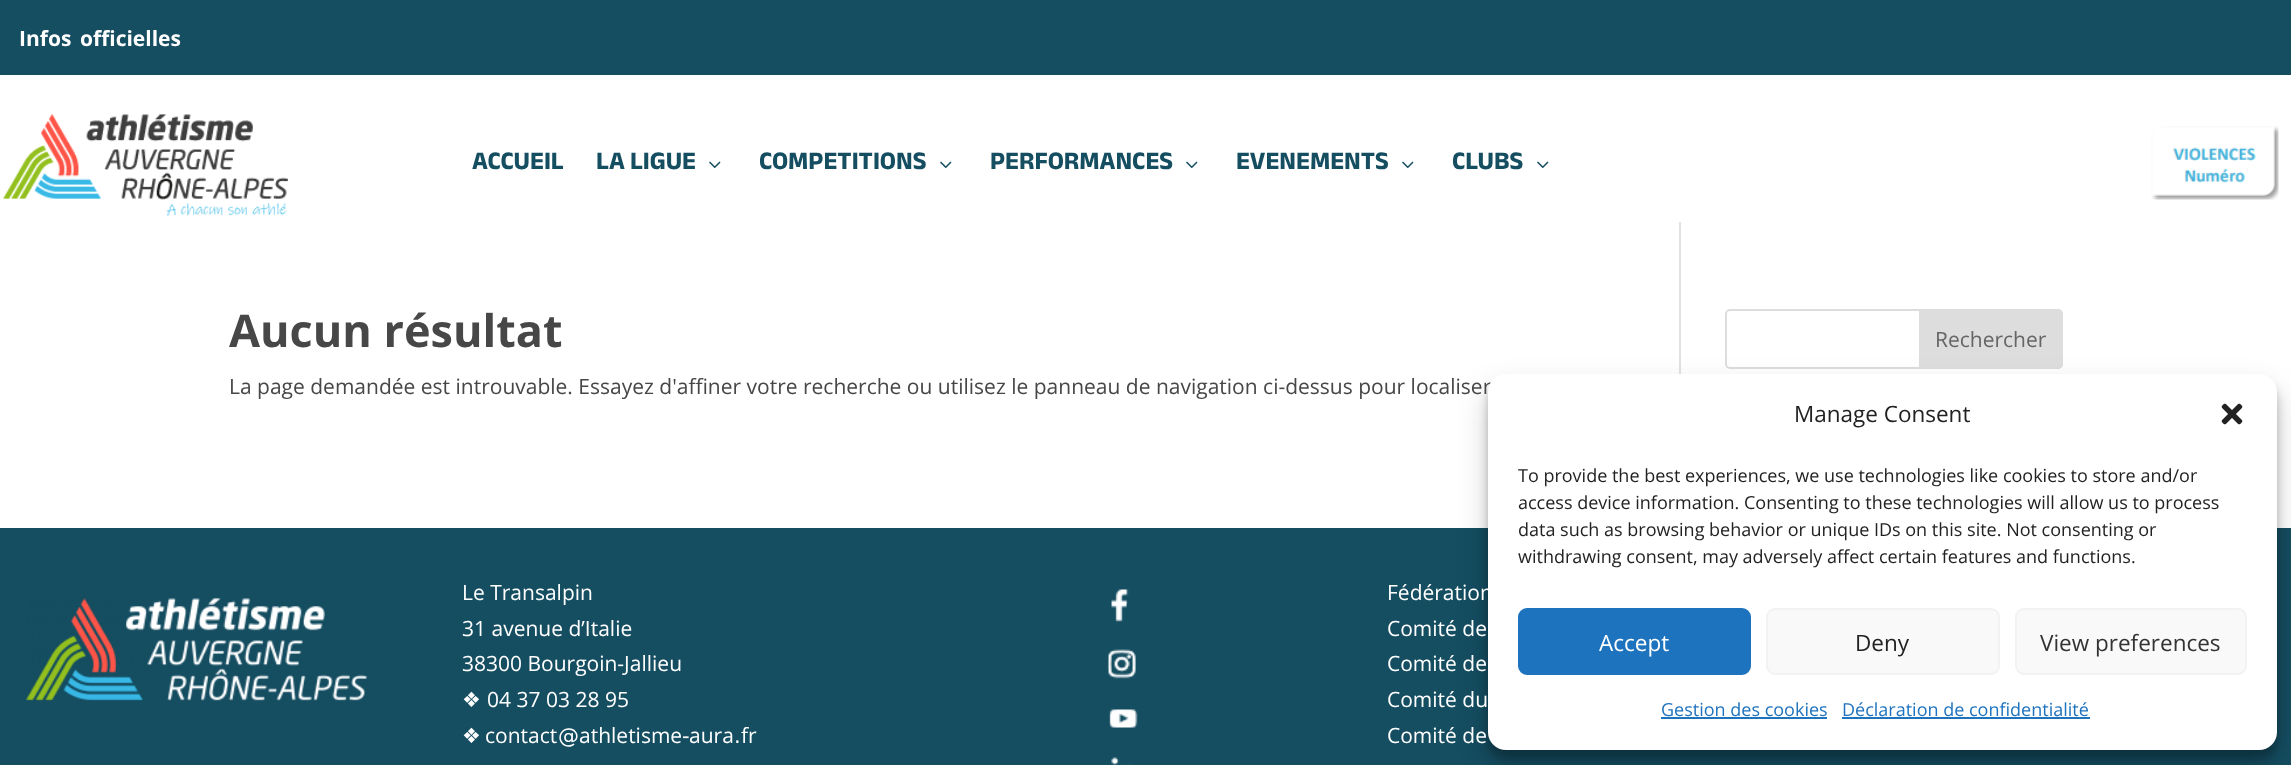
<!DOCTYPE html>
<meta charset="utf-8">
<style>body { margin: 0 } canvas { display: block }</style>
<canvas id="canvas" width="2291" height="765"></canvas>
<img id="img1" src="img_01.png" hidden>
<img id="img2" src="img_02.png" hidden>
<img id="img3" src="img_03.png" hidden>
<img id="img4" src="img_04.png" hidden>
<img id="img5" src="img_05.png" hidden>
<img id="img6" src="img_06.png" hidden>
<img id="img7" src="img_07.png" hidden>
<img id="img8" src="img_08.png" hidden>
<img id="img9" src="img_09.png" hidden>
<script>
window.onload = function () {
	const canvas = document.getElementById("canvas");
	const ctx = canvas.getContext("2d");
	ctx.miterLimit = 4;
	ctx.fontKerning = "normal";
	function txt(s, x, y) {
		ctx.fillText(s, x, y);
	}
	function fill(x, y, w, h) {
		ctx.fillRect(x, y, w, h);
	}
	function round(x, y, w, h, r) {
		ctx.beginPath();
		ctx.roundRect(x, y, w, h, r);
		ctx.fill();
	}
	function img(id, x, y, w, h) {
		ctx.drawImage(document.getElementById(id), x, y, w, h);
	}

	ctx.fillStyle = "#FFFFFF";
	fill(0, 0, 2291, 765);
	ctx.fillStyle = "#154D61";
	fill(0, 0, 2291, 75);
	img("img1", 3, 114, 285, 103);
	img("img2", 709, 161, 12, 7);
	img("img2", 940, 161, 12, 7);
	img("img2", 1186, 161, 12, 7);
	img("img2", 1402, 161, 12, 7);
	img("img2", 1537, 161, 12, 7);
	img("img3", 2151, 126, 128, 74);
	ctx.fillStyle = "#E2E2E2";
	fill(1679, 222, 2, 152);
	ctx.beginPath();
	ctx.roundRect(1726, 310, 336, 58, 4);
	ctx.strokeStyle = "#DDDDDD";
	ctx.lineWidth = 2;
	ctx.stroke();
	ctx.fillStyle = "#DDDDDD";
	ctx.beginPath();
	ctx.roundRect(1920, 310, 142, 58, [0, 4, 4, 0]);
	ctx.fill();
	ctx.stroke();
	ctx.fillStyle = "#154D61";
	fill(0, 528, 2291, 237);
	img("img4", 26, 598, 342, 103);
	img("img5", 1111, 589, 18, 33);
	img("img6", 1107, 649, 29, 30);
	img("img7", 1109, 709, 29, 19);
	img("img8", 1111, 757, 22, 8);
	ctx.fillStyle = "rgba(0, 0, 0, 0.23)";
	ctx.filter = "blur(4.5px)";
	ctx.beginPath();
	ctx.roundRect(1488, 383, 789, 376, 18);
	ctx.fill();
	ctx.filter = "none";
	ctx.fillStyle = "rgba(0, 0, 0, 0.19)";
	ctx.filter = "blur(15px)";
	ctx.beginPath();
	ctx.roundRect(1488, 389, 789, 376, 18);
	ctx.fill();
	ctx.filter = "none";
	ctx.font = "bold 21px Open Sans";
	ctx.fillStyle = "#FFFFFF";
	txt("Infos", 19, 46);
	txt("officielles", 80, 46);
	ctx.font = "bold 25.5px Anek Gujarati";
	ctx.fillStyle = "#154D61";
	txt("ACCUEIL", 472, 169);
	txt("LA LIGUE", 596, 169);
	txt("COMPETITIONS", 759, 169);
	txt("PERFORMANCES", 990, 169);
	txt("EVENEMENTS", 1236, 169);
	txt("CLUBS", 1452, 169);
	ctx.font = "bold 45px Open Sans";
	ctx.fillStyle = "#474747";
	txt("Aucun résultat", 229, 347);
	ctx.font = "21px Open Sans";
	txt("La page demandée est introuvable. Essayez d'affiner votre recherche ou utilisez le panneau de navigation ci-dessus pour localiser", 229, 394);
	ctx.fillStyle = "#666666";
	txt("Rechercher", 1935, 347);
	ctx.fillStyle = "#FFFFFF";
	txt("Le Transalpin", 462, 600);
	txt("31 avenue d’Italie", 462, 636);
	txt("38300 Bourgoin-Jallieu", 462, 671);
	ctx.font = "21px DejaVu Sans";
	txt("❖", 462, 707);
	ctx.font = "21px Open Sans";
	txt("04 37 03 28 95", 487, 707);
	ctx.font = "21px DejaVu Sans";
	txt("❖", 462, 743);
	ctx.font = "21px Open Sans";
	txt("contact", 485, 743);
	ctx.font = "21px DejaVu Sans";
	txt("@", 558, 743);
	ctx.font = "21px Open Sans";
	txt("athletisme", 579, 743);
	ctx.font = "21px DejaVu Sans";
	txt("-", 682, 743);
	ctx.font = "21px Open Sans";
	txt("aura", 689, 743);
	txt("fr", 741, 743);
	ctx.font = "21px DejaVu Sans";
	txt(".", 734, 743);
	ctx.font = "21px Open Sans";
	txt("Fédération", 1387, 600);
	txt("Comité de", 1387, 636);
	txt("Comité de", 1387, 671);
	txt("Comité du", 1387, 707);
	txt("Comité de", 1387, 743);
	round(1488, 374, 789, 376, 18);
	ctx.font = "22.5px Open Sans";
	ctx.fillStyle = "#222222";
	txt("Manage Consent", 1794, 422);
	img("img9", 2221, 403, 22, 22);
	ctx.font = "18px Open Sans";
	txt("To provide the best experiences, we use technologies like cookies to store and/or", 1518, 482);
	txt("access device information. Consenting to these technologies will allow us to process", 1518, 509);
	txt("data such as browsing behavior or unique IDs on this site. Not consenting or", 1518, 536);
	txt("withdrawing consent, may adversely affect certain features and functions.", 1518, 563);
	ctx.fillStyle = "#1E73BE";
	ctx.beginPath();
	ctx.roundRect(1519, 609, 231, 65, 8);
	ctx.fill();
	ctx.strokeStyle = "#1E73BE";
	ctx.stroke();
	ctx.font = "22.5px Open Sans";
	ctx.fillStyle = "#FFFFFF";
	txt("Accept", 1599, 651);
	ctx.fillStyle = "#F9F9F9";
	ctx.beginPath();
	ctx.roundRect(1767, 609, 232, 65, 8);
	ctx.fill();
	ctx.strokeStyle = "#F2F2F2";
	ctx.stroke();
	ctx.fillStyle = "#222222";
	txt("Deny", 1855, 651);
	ctx.fillStyle = "#F9F9F9";
	ctx.beginPath();
	ctx.roundRect(2016, 609, 230, 65, 8);
	ctx.fill();
	ctx.stroke();
	ctx.fillStyle = "#333333";
	txt("View preferences", 2040, 651);
	ctx.font = "18px Open Sans";
	ctx.fillStyle = "#1E73BE";
	txt("Gestion des cookies", 1661, 716);
	fill(1661, 717, 166, 2);
	txt("Déclaration de confidentialité", 1842, 716);
	fill(1842, 717, 248, 2);
};
</script>
